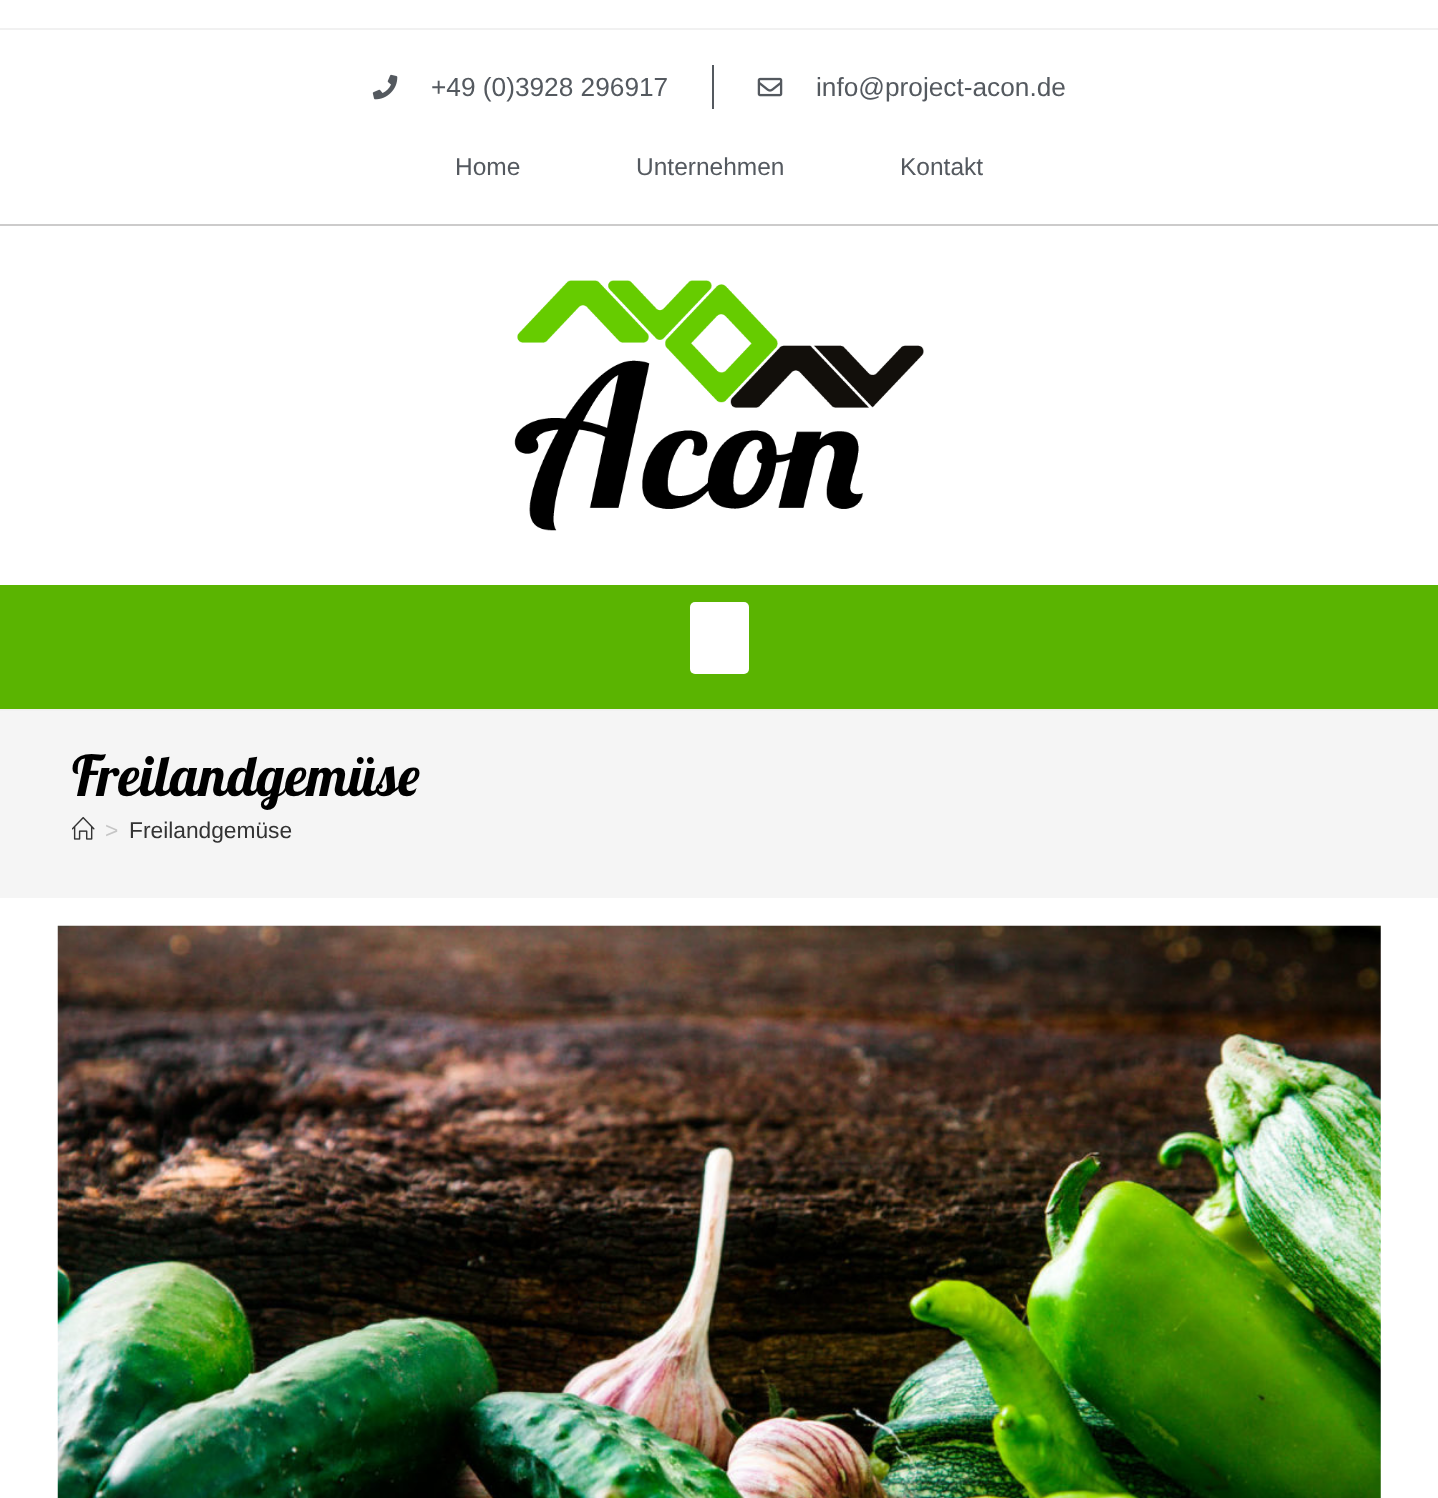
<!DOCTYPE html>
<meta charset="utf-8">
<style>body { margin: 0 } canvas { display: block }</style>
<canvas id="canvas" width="1438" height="1498"></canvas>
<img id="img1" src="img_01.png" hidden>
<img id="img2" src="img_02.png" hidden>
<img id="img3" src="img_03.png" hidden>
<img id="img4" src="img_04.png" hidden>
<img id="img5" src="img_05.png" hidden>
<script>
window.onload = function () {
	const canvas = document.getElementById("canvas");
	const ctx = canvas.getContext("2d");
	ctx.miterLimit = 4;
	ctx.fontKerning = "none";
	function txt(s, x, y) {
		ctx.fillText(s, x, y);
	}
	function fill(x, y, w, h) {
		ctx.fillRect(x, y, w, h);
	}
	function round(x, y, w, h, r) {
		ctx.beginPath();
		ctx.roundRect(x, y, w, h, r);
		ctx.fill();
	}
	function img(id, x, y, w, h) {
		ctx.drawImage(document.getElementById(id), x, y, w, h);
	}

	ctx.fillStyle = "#FFFFFF";
	fill(0, 0, 1438, 1498);
	ctx.fillStyle = "#F1F1F1";
	fill(0, 28, 1438, 2);
	fill(0, 709, 1438, 2);
	ctx.fillStyle = "#CCCBCB";
	fill(0, 224, 1438, 2);
	img("img1", 372, 74, 26, 26);
	ctx.fillStyle = "#54595F";
	fill(712, 65, 2, 44);
	img("img2", 757, 77, 26, 20);
	img("img3", 514, 280, 410, 251);
	ctx.fillStyle = "#5AB401";
	fill(0, 585, 1438, 124);
	ctx.fillStyle = "#FFFFFF";
	round(690, 602, 59, 72, 5);
	ctx.fillStyle = "#F5F5F5";
	fill(0, 711, 1438, 187);
	img("img4", 72, 816, 23, 24);
	img("img5", 57, 925, 1324, 573);
	ctx.font = "26.25px Liberation Sans";
	ctx.fillStyle = "#54595F";
	txt("+49 (0)3928 296917", 431, 96);
	txt("info@project-acon.de", 816, 96);
	ctx.font = "24.5px Liberation Sans";
	txt("Home", 455, 175);
	txt("Unternehmen", 636, 175);
	txt("Kontakt", 900, 175);
	ctx.font = "56px Lobster";
	ctx.fillStyle = "#000000";
	txt("Freilandgemüse", 72, 796);
	ctx.font = "22.75px Liberation Sans";
	ctx.fillStyle = "#C6C6C6";
	txt(">", 105, 838);
	ctx.fillStyle = "#333333";
	txt("Freilandgemüse", 129, 838);
};
</script>
